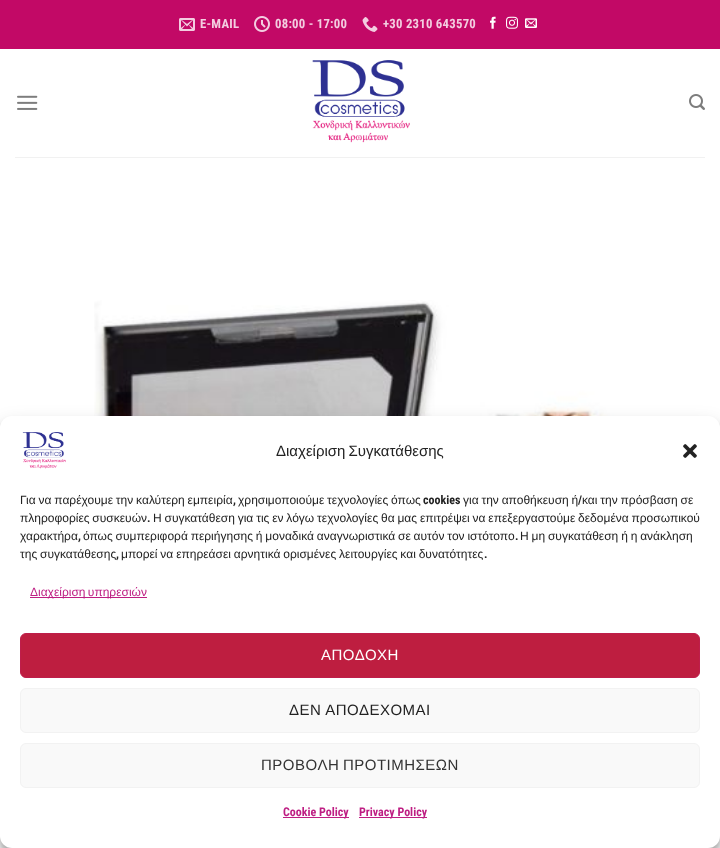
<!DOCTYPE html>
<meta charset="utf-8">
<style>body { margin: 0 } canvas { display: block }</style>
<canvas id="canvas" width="720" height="848"></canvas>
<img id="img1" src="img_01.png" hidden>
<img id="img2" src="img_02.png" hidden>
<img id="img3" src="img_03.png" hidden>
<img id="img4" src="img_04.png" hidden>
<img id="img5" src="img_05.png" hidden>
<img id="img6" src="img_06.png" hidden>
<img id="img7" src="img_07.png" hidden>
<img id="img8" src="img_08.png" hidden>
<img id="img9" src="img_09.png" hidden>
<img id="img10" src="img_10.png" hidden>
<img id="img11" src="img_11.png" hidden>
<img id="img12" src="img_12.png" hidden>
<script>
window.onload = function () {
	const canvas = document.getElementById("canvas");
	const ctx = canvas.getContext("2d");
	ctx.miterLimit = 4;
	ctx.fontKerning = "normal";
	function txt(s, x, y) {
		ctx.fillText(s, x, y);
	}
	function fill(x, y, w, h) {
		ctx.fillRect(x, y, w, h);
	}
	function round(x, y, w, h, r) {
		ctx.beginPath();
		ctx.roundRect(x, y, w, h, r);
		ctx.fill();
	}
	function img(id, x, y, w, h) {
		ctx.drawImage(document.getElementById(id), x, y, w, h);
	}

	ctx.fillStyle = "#FFFFFF";
	fill(0, 0, 720, 848);
	ctx.fillStyle = "#C20966";
	fill(0, 0, 720, 49);
	img("img1", 179, 18, 16, 13);
	img("img2", 254, 16, 16, 16);
	img("img3", 362, 17, 16, 15);
	img("img4", 490, 16, 6, 13);
	img("img5", 506, 16, 12, 13);
	img("img6", 525, 18, 12, 10);
	img("img7", 17, 95, 21, 15);
	img("img8", 312, 60, 98, 83);
	img("img9", 689, 94, 16, 16);
	ctx.fillStyle = "#F1F1F1";
	fill(15, 157, 690, 1);
	img("img10", 94, 300, 520, 116);
	ctx.fillStyle = "rgba(0, 0, 0, 0.23)";
	ctx.filter = "blur(3px)";
	ctx.beginPath();
	ctx.roundRect(0, 422, 720, 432, 12);
	ctx.fill();
	ctx.filter = "none";
	ctx.fillStyle = "rgba(0, 0, 0, 0.19)";
	ctx.filter = "blur(10px)";
	ctx.beginPath();
	ctx.roundRect(0, 426, 720, 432, 12);
	ctx.fill();
	ctx.filter = "none";
	ctx.fillStyle = "#FFFFFF";
	round(0, 416, 720, 432, 12);
	img("img11", 22, 432, 44, 37);
	img("img12", 683, 444, 14, 14);
	ctx.fillStyle = "#BE1E83";
	fill(30, 597, 117, 1);
	ctx.fillStyle = "#BE1E40";
	ctx.beginPath();
	ctx.roundRect(20.5, 633.5, 679, 44, 5.5);
	ctx.fill();
	ctx.strokeStyle = "#BE1E4B";
	ctx.stroke();
	ctx.fillStyle = "#F9F9F9";
	ctx.beginPath();
	ctx.roundRect(20.5, 688.5, 679, 44, 5.5);
	ctx.fill();
	ctx.strokeStyle = "#F2F2F2";
	ctx.stroke();
	ctx.beginPath();
	ctx.roundRect(20.5, 743.5, 679, 44, 5.5);
	ctx.fill();
	ctx.stroke();
	ctx.fillStyle = "#BE1E83";
	fill(283, 817, 66, 1);
	fill(359, 817, 68, 1);
	ctx.letterSpacing = "0.25px";
	ctx.font = "bold 12.75px Roboto Condensed";
	ctx.fillStyle = "#F3CEE0";
	txt("E-MAIL", 200, 28);
	txt("08:00 - 17:00", 275, 28);
	txt("+30 2310 643570", 383, 28);
	ctx.letterSpacing = "0px";
	ctx.wordSpacing = "-1px";
	ctx.font = "15px Liberation Sans";
	ctx.fillStyle = "#222222";
	txt("Διαχείριση Συγκατάθεσης", 276, 456);
	ctx.wordSpacing = "-0.5px";
	ctx.font = "12px Liberation Sans";
	txt("Για να παρέχουμε την καλύτερη εμπειρία", 20, 504);
	ctx.wordSpacing = "0px";
	ctx.font = "bold 12px Roboto Condensed";
	txt(",", 233, 504);
	ctx.wordSpacing = "-0.5px";
	ctx.font = "12px Liberation Sans";
	txt("χρησιμοποιούμε τεχνολογίες όπως", 238, 504);
	ctx.wordSpacing = "0px";
	ctx.font = "bold 12px Roboto Condensed";
	txt("cookies", 423, 504);
	ctx.wordSpacing = "-0.5px";
	ctx.font = "12px Liberation Sans";
	txt("για την αποθήκευση ή", 463, 504);
	ctx.wordSpacing = "0px";
	ctx.font = "bold 12px Roboto Condensed";
	txt("/", 578, 504);
	ctx.wordSpacing = "-0.5px";
	ctx.font = "12px Liberation Sans";
	txt("και την πρόσβαση σε", 582, 504);
	txt("πληροφορίες συσκευών", 20, 522);
	ctx.wordSpacing = "0px";
	ctx.font = "bold 12px Roboto Condensed";
	txt(".", 147, 522);
	ctx.wordSpacing = "-0.5px";
	ctx.font = "12px Liberation Sans";
	txt("Η συγκατάθεση για τις εν λόγω τεχνολογίες θα μας επιτρέψει να επεξεργαστούμε δεδομένα προσωπικού", 153, 522);
	ctx.wordSpacing = "0px";
	txt("χαρακτήρα", 20, 540);
	ctx.font = "bold 12px Roboto Condensed";
	txt(",", 78, 540);
	ctx.wordSpacing = "-0.5px";
	ctx.font = "12px Liberation Sans";
	txt("όπως συμπεριφορά περιήγησης ή μοναδικά αναγνωριστικά σε αυτόν τον ιστότοπο", 83, 540);
	ctx.wordSpacing = "0px";
	ctx.font = "bold 12px Roboto Condensed";
	txt(".", 515, 540);
	ctx.wordSpacing = "-0.5px";
	ctx.font = "12px Liberation Sans";
	txt("Η μη συγκατάθεση ή η ανάκληση", 520, 540);
	txt("της συγκατάθεσης", 20, 558);
	ctx.wordSpacing = "0px";
	ctx.font = "bold 12px Roboto Condensed";
	txt(",", 116, 558);
	ctx.wordSpacing = "-0.5px";
	ctx.font = "12px Liberation Sans";
	txt("μπορεί να επηρεάσει αρνητικά ορισμένες λειτουργίες και δυνατότητες", 121, 558);
	ctx.wordSpacing = "0px";
	ctx.font = "bold 12px Roboto Condensed";
	txt(".", 484, 558);
	ctx.wordSpacing = "-1px";
	ctx.font = "12px Liberation Sans";
	ctx.fillStyle = "#BE1E83";
	txt("Διαχείριση υπηρεσιών", 30, 596);
	ctx.letterSpacing = "0.5px";
	ctx.wordSpacing = "0px";
	ctx.font = "15px Liberation Sans";
	ctx.fillStyle = "#FFFFFF";
	txt("ΑΠΟΔΟΧΗ", 321, 660);
	ctx.fillStyle = "#222222";
	txt("ΔΕΝ ΑΠΟΔΕΧΟΜΑΙ", 289, 715);
	ctx.wordSpacing = "-1px";
	ctx.fillStyle = "#333333";
	txt("ΠΡΟΒΟΛΗ ΠΡΟΤΙΜΗΣΕΩΝ", 261, 770);
	ctx.letterSpacing = "0px";
	ctx.wordSpacing = "0px";
	ctx.font = "bold 12px Roboto Condensed";
	ctx.fillStyle = "#BE1E83";
	txt("Cookie Policy", 283, 816);
	txt("Privacy Policy", 359, 816);
};
</script>
